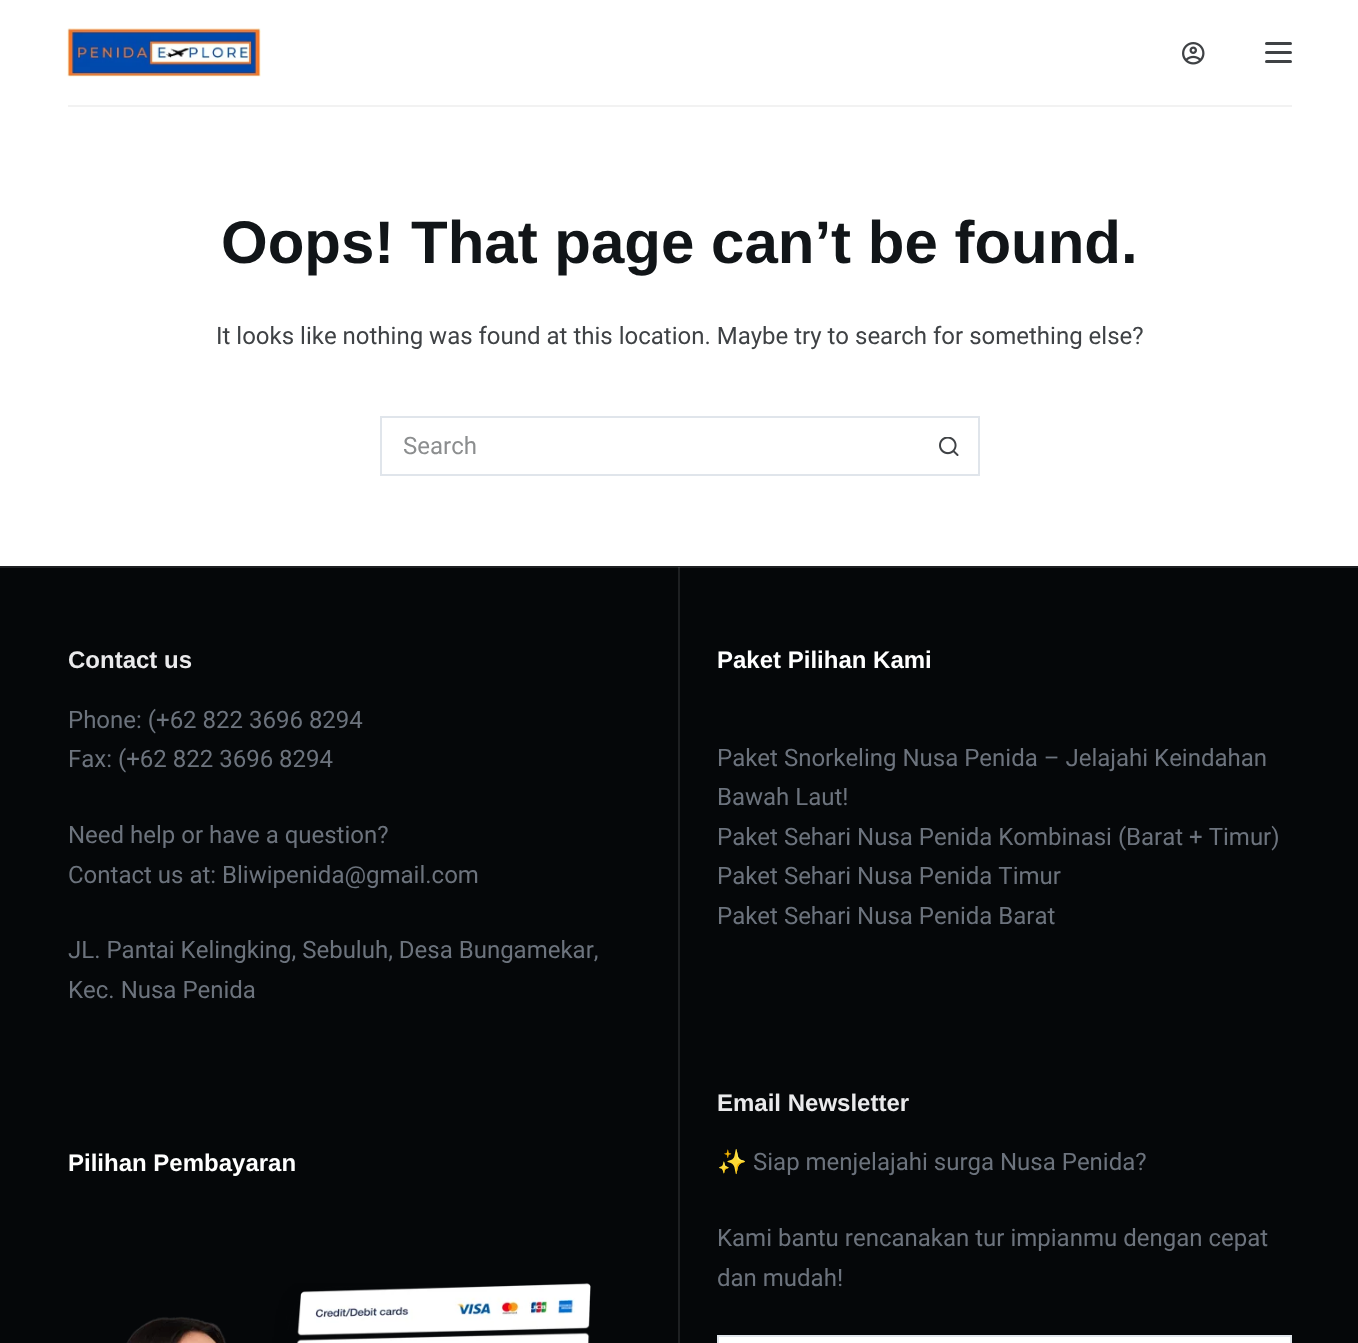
<!DOCTYPE html>
<meta charset="utf-8">
<style>body { margin: 0 } canvas { display: block }</style>
<canvas id="canvas" width="1358" height="1343"></canvas>
<img id="img1" src="img_01.png" hidden>
<img id="img2" src="img_02.png" hidden>
<img id="img3" src="img_03.png" hidden>
<img id="img4" src="img_04.png" hidden>
<script>
window.onload = function () {
	const canvas = document.getElementById("canvas");
	const ctx = canvas.getContext("2d");
	ctx.miterLimit = 4;
	ctx.fontKerning = "none";
	function txt(s, x, y) {
		ctx.fillText(s, x, y);
	}
	function fill(x, y, w, h) {
		ctx.fillRect(x, y, w, h);
	}
	function round(x, y, w, h, r) {
		ctx.beginPath();
		ctx.roundRect(x, y, w, h, r);
		ctx.fill();
	}
	function img(id, x, y, w, h) {
		ctx.drawImage(document.getElementById(id), x, y, w, h);
	}

	ctx.fillStyle = "#FFFFFF";
	fill(0, 0, 1358, 1343);
	ctx.fillStyle = "#F2F2F2";
	fill(68, 105, 1224, 2);
	img("img1", 67, 28, 194, 49);
	img("img2", 1182, 42, 23, 23);
	ctx.fillStyle = "#3F4245";
	round(1265, 42, 27, 3, 1.5);
	round(1265, 51, 27, 3, 1.5);
	round(1265, 60, 27, 3, 1.5);
	ctx.fillStyle = "#E0E5EB";
	fill(380, 416, 600, 2);
	fill(380, 474, 540, 2);
	fill(380, 416, 2, 60);
	fill(978, 416, 2, 60);
	fill(920, 474, 60, 2);
	img("img3", 939, 437, 20, 19);
	ctx.fillStyle = "#050709";
	fill(0, 568, 1358, 775);
	ctx.fillStyle = "#1E2022";
	fill(678, 567, 2, 776);
	fill(0, 566, 1358, 2);
	ctx.fillStyle = "#353638";
	fill(678, 567, 2, 1);
	img("img4", 126, 1283, 465, 60);
	ctx.fillStyle = "#FFFFFF";
	ctx.beginPath();
	ctx.rect(718, 1336, 573, 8);
	ctx.fill();
	ctx.strokeStyle = "#E0E5EB";
	ctx.lineWidth = 2;
	ctx.stroke();
	ctx.font = "bold 60px Liberation Sans";
	ctx.fillStyle = "#111518";
	txt("Oops! That page can’t be found.", 221, 263);
	ctx.font = "24px Roboto";
	ctx.fillStyle = "#3F4245";
	txt("It looks like nothing was found at this location. Maybe try to search for something else?", 216, 344);
	ctx.fillStyle = "#8C8E8F";
	txt("Search", 403, 454);
	ctx.font = "bold 24px Liberation Sans";
	ctx.fillStyle = "#EAEAEC";
	txt("Contact us", 68, 668);
	ctx.font = "24px Roboto";
	ctx.fillStyle = "#6C737D";
	txt("Phone: (+62 822 3696 8294", 68, 728);
	txt("Fax: (+62 822 3696 8294", 68, 767);
	txt("Need help or have a question?", 68, 843);
	txt("Contact us at: Bliwipenida@gmail.com", 68, 883);
	txt("JL. Pantai Kelingking, Sebuluh, Desa Bungamekar,", 68, 958);
	txt("Kec. Nusa Penida", 68, 998);
	ctx.font = "bold 24px Liberation Sans";
	ctx.fillStyle = "#FFFFFF";
	txt("Paket Pilihan Kami", 717, 668);
	ctx.font = "24px Roboto";
	ctx.fillStyle = "#6C737D";
	txt("Paket Snorkeling Nusa Penida – Jelajahi Keindahan", 717, 766);
	txt("Bawah Laut!", 717, 805);
	txt("Paket Sehari Nusa Penida Kombinasi (Barat + Timur)", 717, 845);
	txt("Paket Sehari Nusa Penida Timur", 717, 884);
	txt("Paket Sehari Nusa Penida Barat", 717, 924);
	ctx.font = "bold 24px Liberation Sans";
	ctx.fillStyle = "#FFFFFF";
	txt("Pilihan Pembayaran", 68, 1171);
	ctx.fillStyle = "#EAEAEC";
	txt("Email Newsletter", 717, 1111);
	ctx.font = "24px Noto Color Emoji";
	ctx.fillStyle = "#6C737D";
	txt("✨", 717, 1170);
	ctx.font = "24px Roboto";
	txt("Siap menjelajahi surga Nusa Penida?", 753, 1170);
	txt("Kami bantu rencanakan tur impianmu dengan cepat", 717, 1246);
	txt("dan mudah!", 717, 1286);
};
</script>
